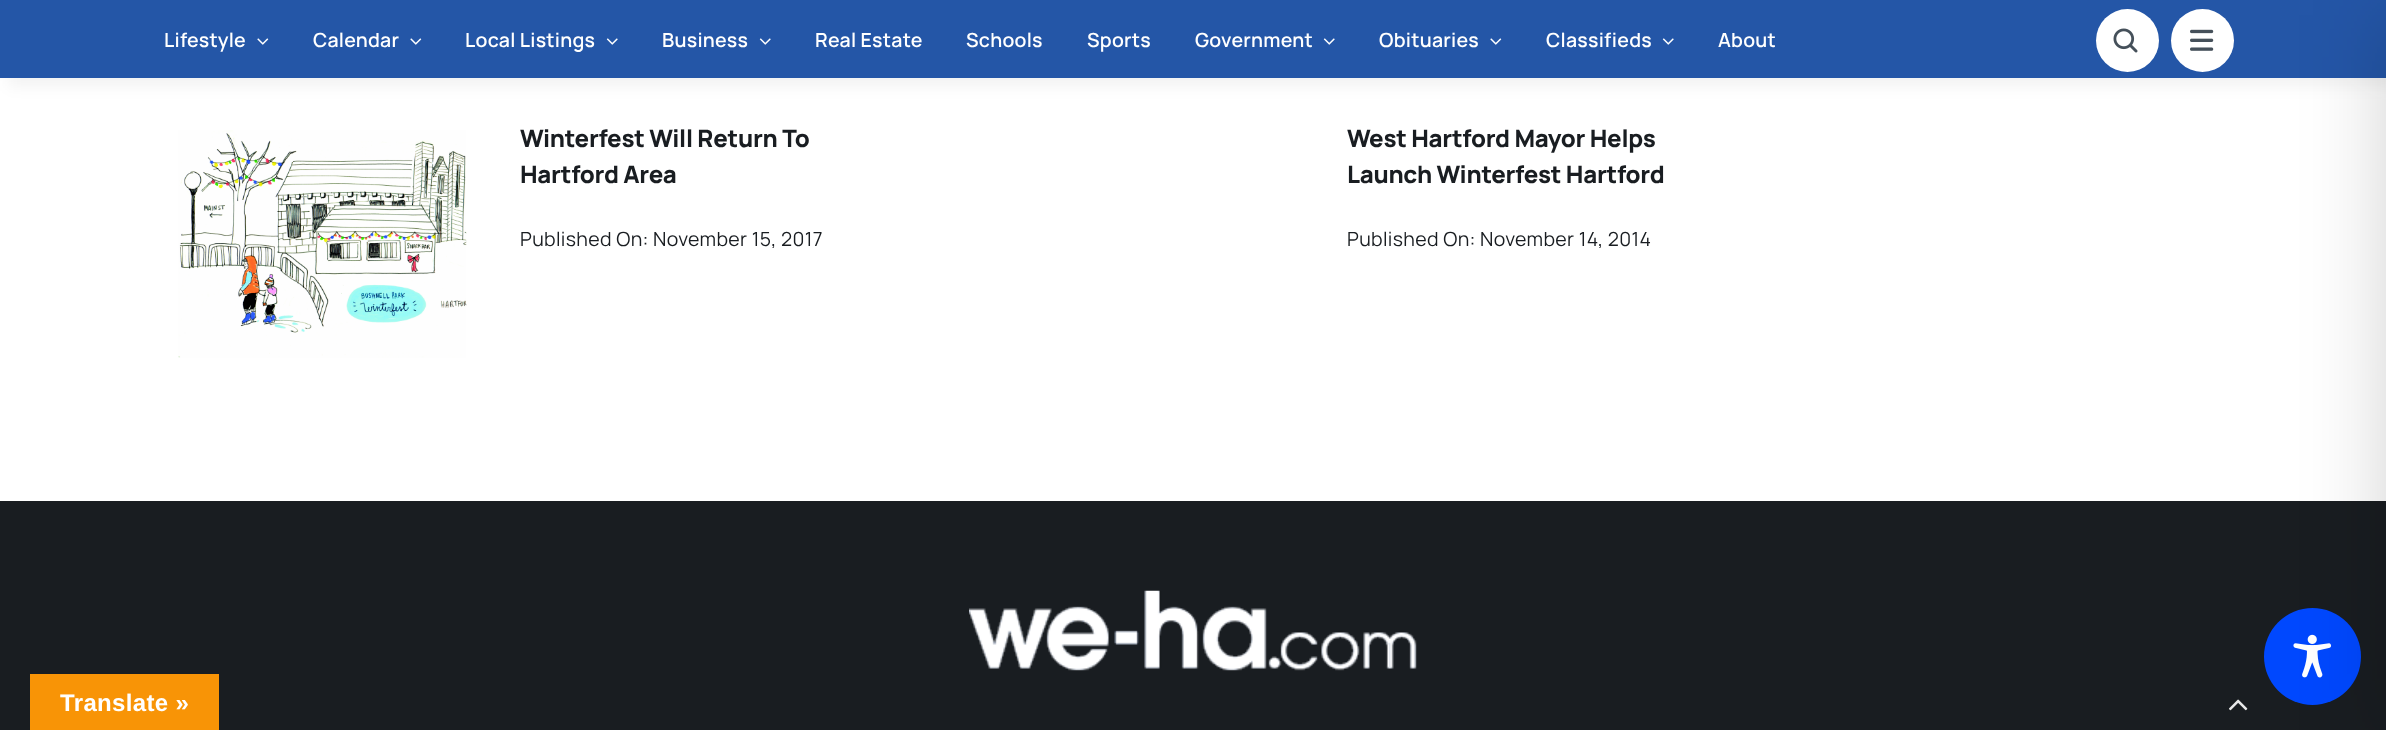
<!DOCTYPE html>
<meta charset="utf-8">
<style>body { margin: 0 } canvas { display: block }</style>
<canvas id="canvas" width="2386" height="730"></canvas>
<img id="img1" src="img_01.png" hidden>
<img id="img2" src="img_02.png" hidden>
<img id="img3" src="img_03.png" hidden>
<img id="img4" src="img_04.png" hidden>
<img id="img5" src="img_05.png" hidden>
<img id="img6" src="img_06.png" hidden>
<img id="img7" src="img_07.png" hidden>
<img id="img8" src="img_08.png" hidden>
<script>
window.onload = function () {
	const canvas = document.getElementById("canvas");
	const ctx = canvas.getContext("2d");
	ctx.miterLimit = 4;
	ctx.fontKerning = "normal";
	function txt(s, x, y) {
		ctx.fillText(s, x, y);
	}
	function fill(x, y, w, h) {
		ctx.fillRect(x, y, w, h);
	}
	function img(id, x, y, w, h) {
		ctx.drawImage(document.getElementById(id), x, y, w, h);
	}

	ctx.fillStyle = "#FFFFFF";
	fill(0, 0, 2386, 730);
	ctx.fillStyle = "rgba(2, 3, 3, 0.05)";
	ctx.filter = "blur(7.5px)";
	ctx.beginPath();
	ctx.rect(8, 8, 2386, 78);
	ctx.fill();
	ctx.filter = "none";
	ctx.fillStyle = "#2456A7";
	fill(0, 0, 2386, 78);
	img("img1", 257, 38, 12, 7);
	img("img1", 410, 38, 12, 7);
	img("img2", 606, 38, 12, 7);
	img("img2", 759, 38, 12, 7);
	img("img2", 1323, 38, 12, 7);
	img("img1", 1490, 38, 12, 7);
	img("img2", 1662, 38, 12, 7);
	ctx.fillStyle = "#FFFFFF";
	ctx.beginPath();
	ctx.arc(2127.5, 40.5, 31.5, 0, Math.PI * 2);
	ctx.fill();
	img("img3", 2113, 28, 25, 25);
	ctx.beginPath();
	ctx.arc(2202.5, 40.5, 31.5, 0, Math.PI * 2);
	ctx.fill();
	img("img4", 2190, 29, 24, 22);
	img("img5", 178, 130, 289, 228);
	ctx.fillStyle = "#191D21";
	fill(0, 501, 2386, 229);
	img("img6", 969, 590, 448, 81);
	ctx.fillStyle = "#0048FE";
	ctx.beginPath();
	ctx.arc(2312.5, 656.5, 48.5, 0, Math.PI * 2);
	ctx.fill();
	img("img7", 2293, 634, 39, 44);
	ctx.fillStyle = "rgba(0, 0, 0, 0.2)";
	ctx.filter = "blur(45px)";
	ctx.beginPath();
	ctx.rect(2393, 15, 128, 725);
	ctx.fill();
	ctx.filter = "none";
	ctx.fillStyle = "#F89406";
	fill(30, 674, 189, 56);
	img("img8", 2229, 699, 19, 12);
	ctx.letterSpacing = "0.25px";
	ctx.font = "600 19.5px Manrope";
	ctx.fillStyle = "#FFFFFF";
	txt("Lifestyle", 164, 47);
	txt("Calendar", 313, 47);
	txt("Local Listings", 465, 47);
	txt("Business", 662, 47);
	txt("Real Estate", 815, 47);
	txt("Schools", 966, 47);
	txt("Sports", 1087, 47);
	txt("Government", 1195, 47);
	txt("Obituaries", 1379, 47);
	txt("Classifieds", 1546, 47);
	txt("About", 1718, 47);
	ctx.letterSpacing = "-0.25px";
	ctx.font = "800 24px Manrope";
	ctx.fillStyle = "#191D21";
	txt("Winterfest Will Return To", 520, 147);
	txt("Hartford Area", 520, 183);
	ctx.letterSpacing = "0.35px";
	ctx.font = "19.5px Manrope";
	txt("Published On: November 15, 2017", 520, 246);
	ctx.letterSpacing = "-0.25px";
	ctx.font = "800 24px Manrope";
	txt("West Hartford Mayor Helps", 1347, 147);
	txt("Launch Winterfest Hartford", 1347, 183);
	ctx.letterSpacing = "0.35px";
	ctx.font = "19.5px Manrope";
	txt("Published On: November 14, 2014", 1347, 246);
	ctx.font = "bold 24px Liberation Sans";
	ctx.fillStyle = "#FFFFFF";
	txt("Translate »", 60, 711);
};
</script>
